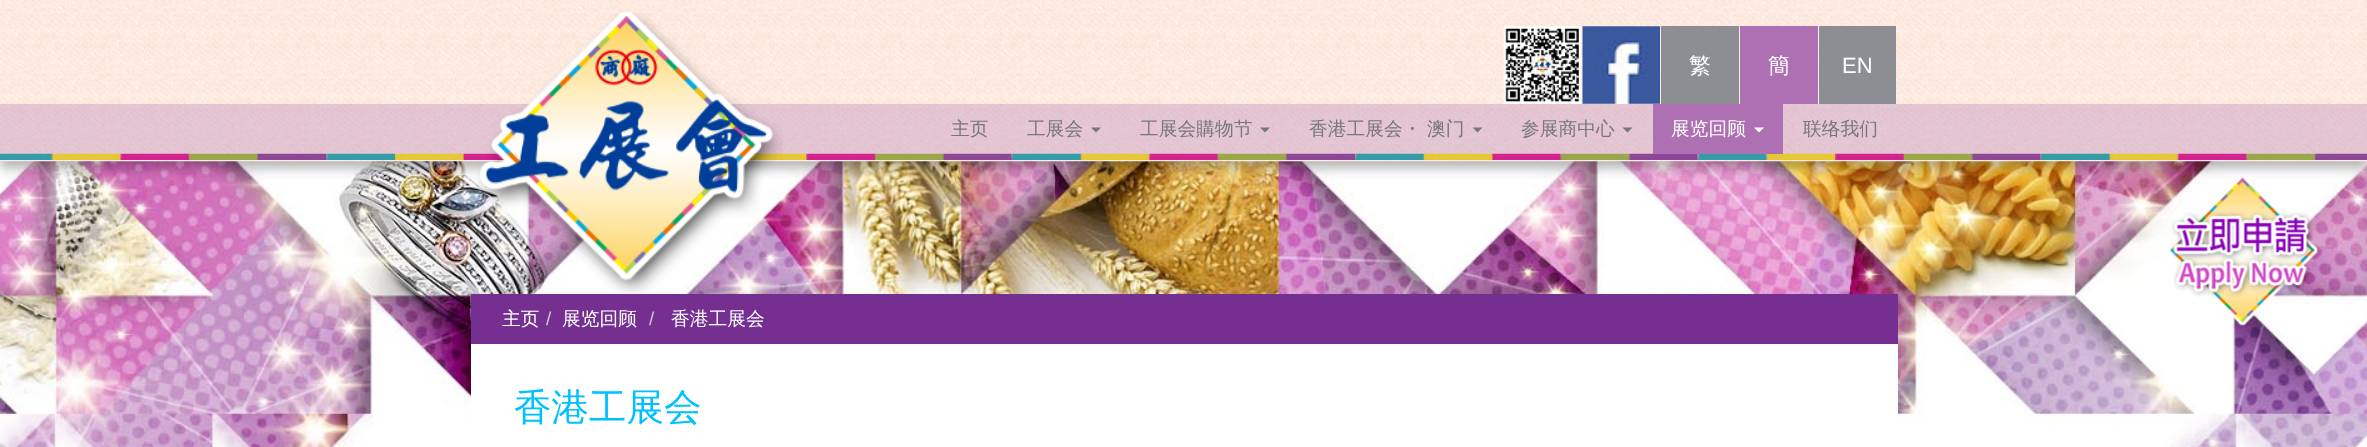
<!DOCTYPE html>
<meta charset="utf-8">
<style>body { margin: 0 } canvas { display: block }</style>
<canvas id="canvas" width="2367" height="447"></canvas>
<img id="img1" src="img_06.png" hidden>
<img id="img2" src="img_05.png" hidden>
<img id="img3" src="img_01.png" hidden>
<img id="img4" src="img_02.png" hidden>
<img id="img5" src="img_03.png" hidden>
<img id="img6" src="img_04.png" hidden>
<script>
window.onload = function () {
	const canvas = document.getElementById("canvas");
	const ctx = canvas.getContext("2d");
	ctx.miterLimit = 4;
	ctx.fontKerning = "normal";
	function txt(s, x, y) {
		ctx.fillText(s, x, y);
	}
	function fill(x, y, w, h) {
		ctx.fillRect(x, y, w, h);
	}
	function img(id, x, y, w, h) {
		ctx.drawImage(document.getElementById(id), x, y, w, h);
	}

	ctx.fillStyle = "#FFFFFF";
	fill(0, 0, 2367, 447);
	img("img1", 0, 161, 2367, 286);
	img("img2", 2170, 177, 148, 149);
	ctx.fillStyle = "rgba(0, 0, 0, 0.3)";
	ctx.filter = "blur(6px)";
	ctx.beginPath();
	ctx.rect(0, 6, 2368, 162);
	ctx.fill();
	ctx.filter = "none";
	img("img3", 0, 0, 2367, 162);
	ctx.fillStyle = "rgba(173, 112, 179, 0.3)";
	fill(0, 104, 2367, 56);
	img("img4", 476, 12, 307, 282);
	img("img5", 1503, 26, 79, 78);
	img("img6", 1582, 26, 78, 78);
	ctx.fillStyle = "#8D8E93";
	fill(1661, 26, 78, 78);
	ctx.fillStyle = "#AD70B3";
	fill(1740, 26, 78, 78);
	ctx.fillStyle = "#8D8E93";
	fill(1819, 26, 77, 78);
	ctx.fillStyle = "#777777";
	ctx.beginPath();
	ctx.moveTo(1091, 127.5);
	ctx.lineTo(1101, 127.5);
	ctx.lineTo(1096, 132.5);
	ctx.closePath();
	ctx.fill();
	ctx.beginPath();
	ctx.moveTo(1260, 127.5);
	ctx.lineTo(1270, 127.5);
	ctx.lineTo(1265, 132.5);
	ctx.closePath();
	ctx.fill();
	ctx.beginPath();
	ctx.moveTo(1472.5, 127.5);
	ctx.lineTo(1482.5, 127.5);
	ctx.lineTo(1477.5, 132.5);
	ctx.closePath();
	ctx.fill();
	ctx.beginPath();
	ctx.moveTo(1622.5, 127.5);
	ctx.lineTo(1632.5, 127.5);
	ctx.lineTo(1627.5, 132.5);
	ctx.closePath();
	ctx.fill();
	ctx.fillStyle = "#AD70B3";
	fill(1653, 104, 130, 50);
	ctx.fillStyle = "#FFFFFF";
	ctx.beginPath();
	ctx.moveTo(1754, 127.5);
	ctx.lineTo(1764, 127.5);
	ctx.lineTo(1759, 132.5);
	ctx.closePath();
	ctx.fill();
	fill(471, 344, 1427, 81);
	ctx.fillStyle = "#742F91";
	fill(471, 294, 1427, 50);
	ctx.font = "500 22px WenQuanYi Zen Hei";
	ctx.fillStyle = "#FFFFFF";
	txt("繁", 1689, 73);
	txt("簡", 1768, 73);
	ctx.font = "22px Liberation Sans";
	txt("EN", 1842, 73);
	ctx.font = "500 18.75px WenQuanYi Zen Hei";
	ctx.fillStyle = "#777777";
	txt("主页", 951, 135);
	txt("工展会", 1027, 135);
	txt("工展会購物节", 1140, 135);
	txt("香港工展会・ 澳门", 1309, 135);
	txt("参展商中心", 1521, 135);
	ctx.fillStyle = "#FFFFFF";
	txt("展览回顾", 1671, 135);
	ctx.fillStyle = "#777777";
	txt("联络我们", 1803, 135);
	ctx.fillStyle = "#FFFFFF";
	txt("主页", 502, 325);
	ctx.font = "18.75px Liberation Sans";
	ctx.fillStyle = "#CCCCCC";
	txt("/", 546, 325);
	ctx.font = "500 18.75px WenQuanYi Zen Hei";
	ctx.fillStyle = "#FFFFFF";
	txt("展览回顾", 562, 325);
	ctx.font = "18.75px Liberation Sans";
	ctx.fillStyle = "#CCCCCC";
	txt("/", 649, 325);
	ctx.font = "500 18.75px WenQuanYi Zen Hei";
	ctx.fillStyle = "#FFFFFF";
	txt("香港工展会", 671, 325);
	ctx.font = "500 37.5px WenQuanYi Zen Hei";
	ctx.fillStyle = "#00C1FF";
	txt("香港工展会", 514, 420);
};
</script>
